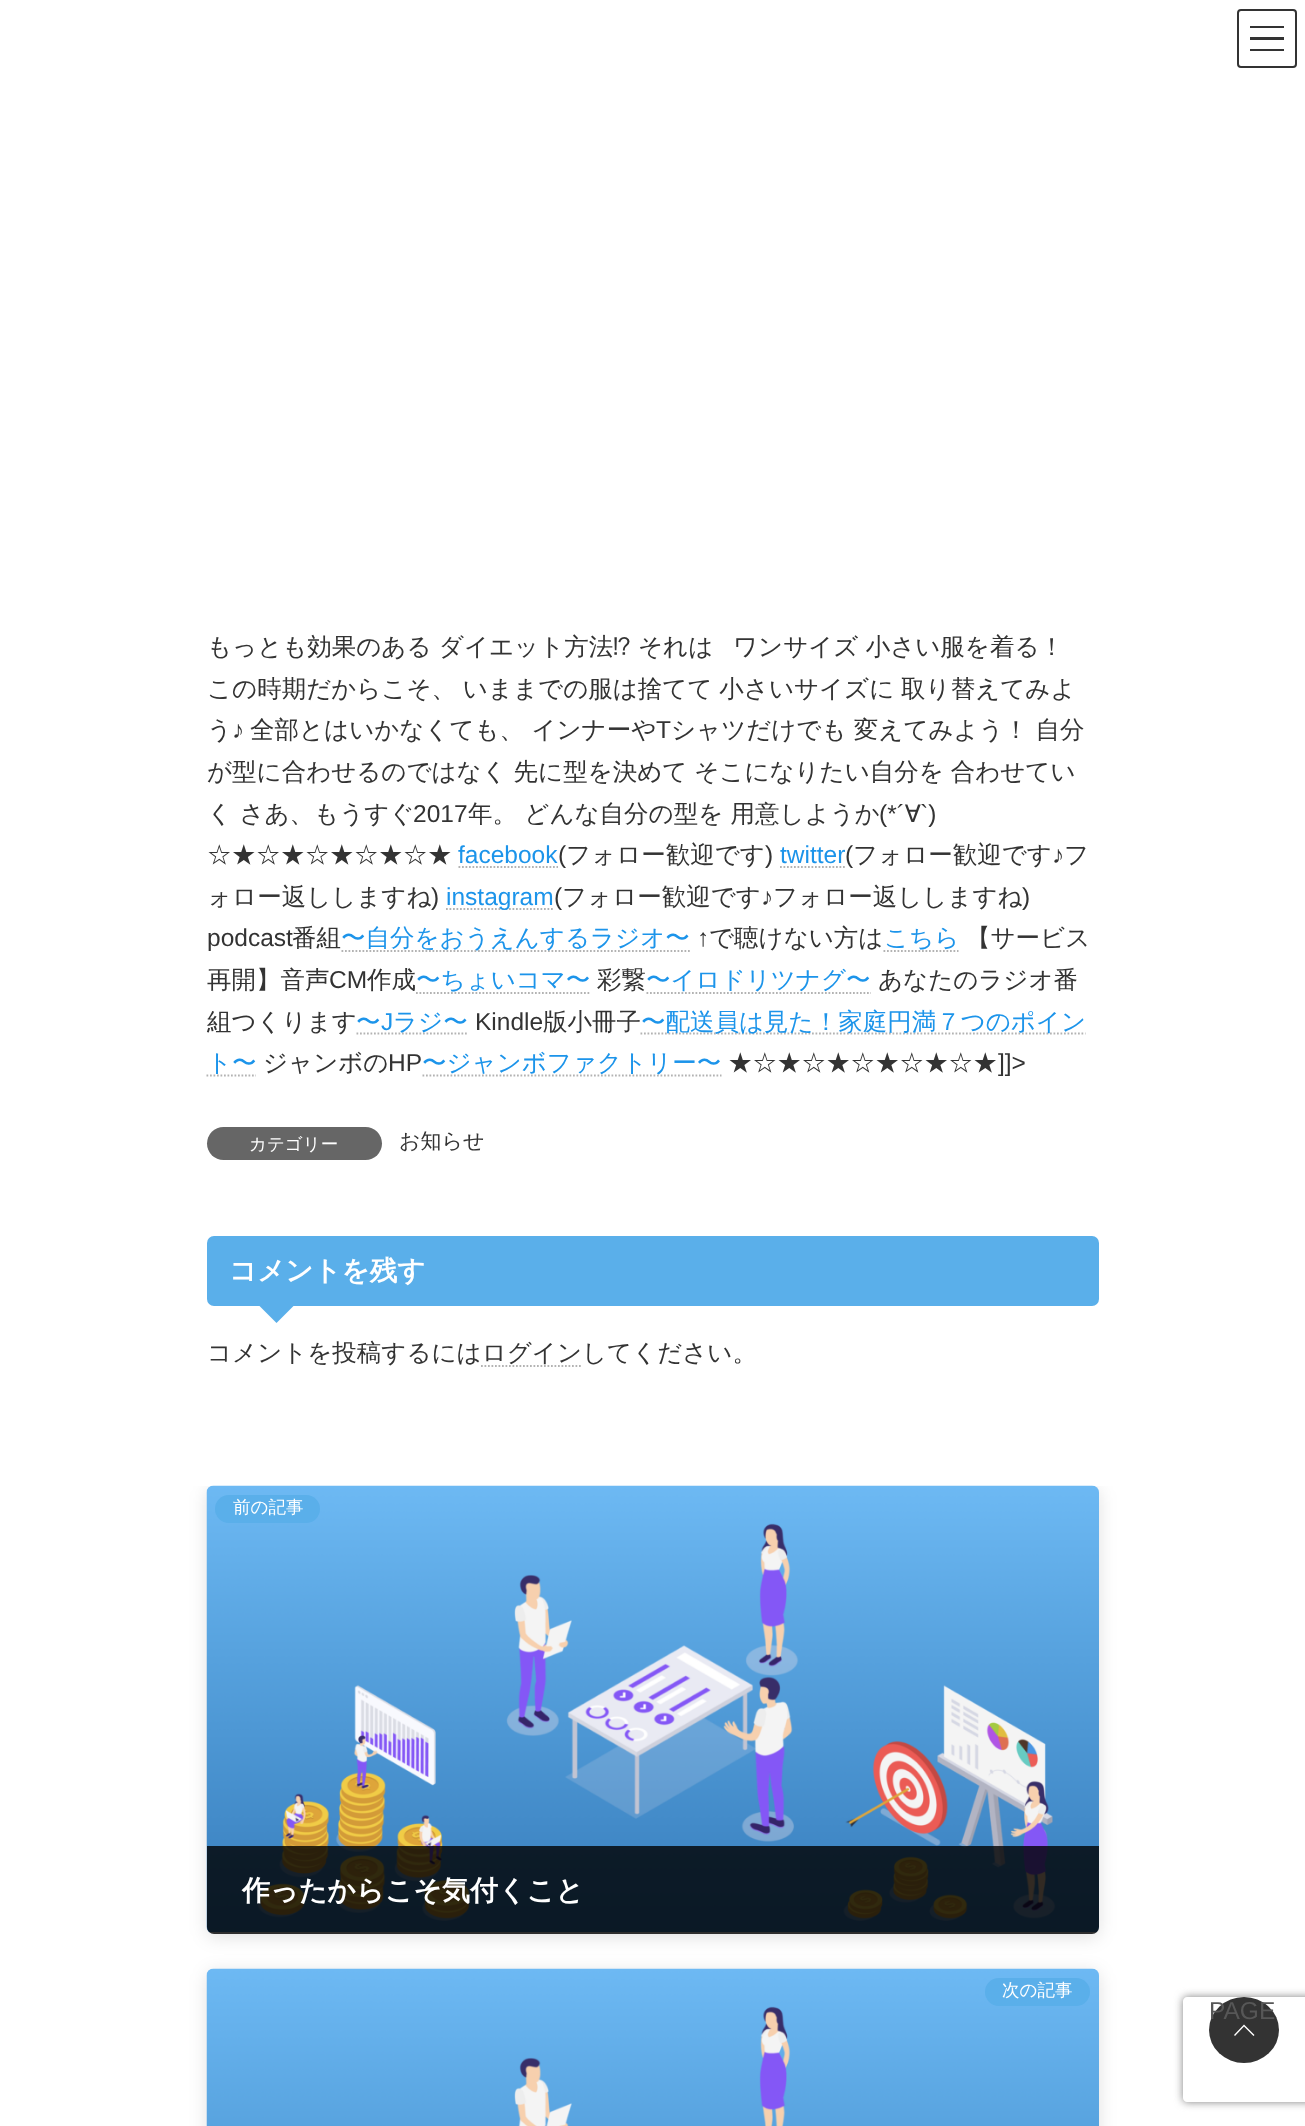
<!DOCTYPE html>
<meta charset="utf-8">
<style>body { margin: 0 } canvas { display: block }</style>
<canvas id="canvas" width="1305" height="2126"></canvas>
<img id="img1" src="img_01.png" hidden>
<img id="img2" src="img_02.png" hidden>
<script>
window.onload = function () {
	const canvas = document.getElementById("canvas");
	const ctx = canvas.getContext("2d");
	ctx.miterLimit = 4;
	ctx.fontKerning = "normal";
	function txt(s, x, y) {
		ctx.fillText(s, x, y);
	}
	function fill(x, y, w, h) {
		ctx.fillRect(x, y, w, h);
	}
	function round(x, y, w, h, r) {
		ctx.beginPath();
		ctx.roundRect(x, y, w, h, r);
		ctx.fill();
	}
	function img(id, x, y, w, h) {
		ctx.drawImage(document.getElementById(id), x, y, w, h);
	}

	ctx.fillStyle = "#FFFFFF";
	fill(0, 0, 1305, 2126);
	ctx.fillStyle = "#333333";
	fill(1250, 26, 34, 2);
	fill(1250, 37, 34, 3);
	fill(1250, 49, 34, 2);
	ctx.beginPath();
	ctx.roundRect(1238, 10, 58, 57, 3);
	ctx.strokeStyle = "#333333";
	ctx.lineWidth = 2;
	ctx.stroke();
	ctx.beginPath();
	ctx.moveTo(458.5, 867);
	ctx.lineTo(558, 867);
	ctx.strokeStyle = "#B3B3B3";
	ctx.lineWidth = 1.8;
	ctx.setLineDash([1.75, 1.75]);
	ctx.stroke();
	ctx.beginPath();
	ctx.moveTo(780, 867);
	ctx.lineTo(845, 867);
	ctx.stroke();
	ctx.beginPath();
	ctx.moveTo(446, 909);
	ctx.lineTo(553.5, 909);
	ctx.stroke();
	ctx.beginPath();
	ctx.moveTo(341.5, 951);
	ctx.lineTo(690, 951);
	ctx.stroke();
	ctx.beginPath();
	ctx.moveTo(883.5, 951);
	ctx.lineTo(958.5, 951);
	ctx.stroke();
	ctx.beginPath();
	ctx.moveTo(416, 993);
	ctx.lineTo(590.5, 993);
	ctx.stroke();
	ctx.beginPath();
	ctx.moveTo(646.5, 993);
	ctx.lineTo(871, 993);
	ctx.stroke();
	ctx.beginPath();
	ctx.moveTo(356.5, 1033.5);
	ctx.lineTo(468, 1033.5);
	ctx.stroke();
	ctx.beginPath();
	ctx.moveTo(640.5, 1033.5);
	ctx.lineTo(1085.5, 1033.5);
	ctx.stroke();
	ctx.beginPath();
	ctx.moveTo(206.5, 1075.5);
	ctx.lineTo(256, 1075.5);
	ctx.stroke();
	ctx.beginPath();
	ctx.moveTo(422.5, 1075.5);
	ctx.lineTo(721.5, 1075.5);
	ctx.stroke();
	ctx.fillStyle = "#666666";
	round(207, 1127, 175, 33, 16.5);
	ctx.fillStyle = "#5AAFEA";
	round(207, 1236, 892, 70, 7);
	ctx.beginPath();
	ctx.moveTo(259, 1305.5);
	ctx.lineTo(294, 1305.5);
	ctx.lineTo(276.5, 1323);
	ctx.closePath();
	ctx.fill();
	ctx.save();
	ctx.beginPath();
	ctx.rect(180, 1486, 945, 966);
	ctx.clip();
	ctx.fillStyle = "rgba(0, 0, 0, 0.12)";
	ctx.filter = "blur(9px)";
	ctx.beginPath();
	ctx.roundRect(207, 1489, 892, 448, 7);
	ctx.fill();
	ctx.filter = "none";
	ctx.restore();
	ctx.fillStyle = "#FFFFFF";
	round(207, 1486, 892, 448, 7);
	img("img1", 206, 1485, 893, 449);
	ctx.save();
	ctx.beginPath();
	ctx.roundRect(207, 1486, 892, 448, 7);
	ctx.clip();
	ctx.fillStyle = "#E5E5E5";
	fill(207, 1932, 892, 2);
	ctx.restore();
	ctx.fillStyle = "#5AAFEA";
	round(215, 1495, 105, 28, 14);
	ctx.fillStyle = "rgba(0, 0, 0, 0.8)";
	ctx.beginPath();
	ctx.roundRect(207, 1846, 892, 88, [0, 0, 7, 7]);
	ctx.fill();
	ctx.fillStyle = "rgba(0, 0, 0, 0.12)";
	ctx.filter = "blur(9px)";
	ctx.beginPath();
	ctx.roundRect(207, 1972, 892, 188, 7);
	ctx.fill();
	ctx.filter = "none";
	img("img2", 206, 1968, 893, 158);
	ctx.fillStyle = "#5AAFEA";
	round(985, 1978, 105, 28, 14);
	ctx.save();
	ctx.beginPath();
	ctx.moveTo(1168, 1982);
	ctx.lineTo(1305, 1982);
	ctx.lineTo(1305, 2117);
	ctx.lineTo(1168, 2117);
	ctx.closePath();
	ctx.moveTo(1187, 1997);
	ctx.lineTo(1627, 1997);
	ctx.bezierCurveTo(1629, 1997, 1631, 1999, 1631, 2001);
	ctx.lineTo(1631, 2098);
	ctx.bezierCurveTo(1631, 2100, 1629, 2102, 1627, 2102);
	ctx.lineTo(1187, 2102);
	ctx.bezierCurveTo(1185, 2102, 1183, 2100, 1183, 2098);
	ctx.lineTo(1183, 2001);
	ctx.bezierCurveTo(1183, 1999, 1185, 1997, 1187, 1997);
	ctx.closePath();
	ctx.clip("evenodd");
	ctx.fillStyle = "#808080";
	ctx.filter = "blur(4.5px)";
	ctx.beginPath();
	ctx.roundRect(1183, 1997, 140, 105, 4);
	ctx.fill();
	ctx.filter = "none";
	ctx.restore();
	ctx.fillStyle = "#333333";
	ctx.beginPath();
	ctx.ellipse(1244, 2030, 35, 33, 0, 0, Math.PI * 2);
	ctx.fill();
	ctx.fillStyle = "#FFFFFF";
	ctx.beginPath();
	ctx.moveTo(1254.5, 2035);
	ctx.lineTo(1253.5, 2036);
	ctx.lineTo(1244, 2026.5);
	ctx.lineTo(1235, 2036);
	ctx.lineTo(1234, 2035);
	ctx.lineTo(1244, 2024.5);
	ctx.closePath();
	ctx.fill();
	ctx.font = "500 24.5px WenQuanYi Zen Hei";
	ctx.fillStyle = "#333333";
	txt("もっとも効果のある ダイエット方法", 207, 655);
	ctx.font = "24.5px IPAPGothic";
	txt("⁉︎", 612, 655);
	ctx.font = "500 24.5px WenQuanYi Zen Hei";
	txt("それは", 638, 655);
	txt("ワンサイズ 小さい服を着る！", 733, 655);
	ctx.wordSpacing = "-0.5px";
	txt("この時期だからこそ、 いままでの服は捨てて 小さいサイズに 取り替えてみよ", 207, 697);
	ctx.wordSpacing = "0px";
	txt("う", 207, 738);
	ctx.font = "24.5px Liberation Sans";
	txt("♪", 232, 738);
	ctx.font = "500 24.5px WenQuanYi Zen Hei";
	txt("全部とはいかなくても、 インナーや", 250, 738);
	ctx.font = "24.5px Liberation Sans";
	txt("T", 656, 738);
	ctx.font = "500 24.5px WenQuanYi Zen Hei";
	txt("シャツだけでも 変えてみよう！ 自分", 671, 738);
	ctx.wordSpacing = "-0.5px";
	txt("が型に合わせるのではなく 先に型を決めて そこになりたい自分を 合わせてい", 207, 780);
	ctx.wordSpacing = "0px";
	txt("く さあ、もうすぐ", 207, 822);
	ctx.font = "24.5px Liberation Sans";
	txt("2017", 413, 822);
	ctx.font = "500 24.5px WenQuanYi Zen Hei";
	txt("年。 どんな自分の型を 用意しようか", 468, 822);
	ctx.font = "24.5px Liberation Sans";
	txt("(*´", 879, 822);
	ctx.font = "500 24.5px WenQuanYi Zen Hei";
	txt("∀", 905, 822);
	ctx.font = "24.5px Liberation Sans";
	txt("`)", 920, 822);
	ctx.font = "500 24.5px WenQuanYi Zen Hei";
	txt("☆★☆★☆★☆★☆★", 207, 863);
	ctx.font = "24.5px Liberation Sans";
	ctx.fillStyle = "#1C94EA";
	txt("facebook", 458, 863);
	ctx.fillStyle = "#333333";
	txt("(", 558, 863);
	ctx.font = "500 24.5px WenQuanYi Zen Hei";
	txt("フォロー歓迎です", 566, 863);
	ctx.font = "24.5px Liberation Sans";
	txt(")", 765, 863);
	ctx.fillStyle = "#1C94EA";
	txt("twitter", 780, 863);
	ctx.fillStyle = "#333333";
	txt("(", 845, 863);
	ctx.font = "500 24.5px WenQuanYi Zen Hei";
	txt("フォロー歓迎です", 853, 863);
	ctx.font = "24.5px Liberation Sans";
	txt("♪", 1052, 863);
	ctx.font = "500 24.5px WenQuanYi Zen Hei";
	txt("フ", 1064, 863);
	txt("ォロー返ししますね", 207, 905);
	ctx.font = "24.5px Liberation Sans";
	txt(")", 431, 905);
	ctx.fillStyle = "#1C94EA";
	txt("instagram", 446, 905);
	ctx.fillStyle = "#333333";
	txt("(", 554, 905);
	ctx.font = "500 24.5px WenQuanYi Zen Hei";
	txt("フォロー歓迎です", 562, 905);
	ctx.font = "24.5px Liberation Sans";
	txt("♪", 761, 905);
	ctx.font = "500 24.5px WenQuanYi Zen Hei";
	txt("フォロー返ししますね", 773, 905);
	ctx.font = "24.5px Liberation Sans";
	txt(")", 1022, 905);
	txt("podcast", 207, 946);
	ctx.font = "500 24.5px WenQuanYi Zen Hei";
	txt("番組", 292, 946);
	ctx.fillStyle = "#1C94EA";
	txt("〜自分をおうえんするラジオ〜", 341, 946);
	ctx.font = "24.5px Liberation Sans";
	ctx.fillStyle = "#333333";
	txt("↑", 697, 946);
	ctx.font = "500 24.5px WenQuanYi Zen Hei";
	txt("で聴けない方は", 709, 946);
	ctx.fillStyle = "#1C94EA";
	txt("こちら", 884, 946);
	ctx.fillStyle = "#333333";
	txt("【サービス", 966, 946);
	txt("再開】音声", 207, 988);
	ctx.font = "24.5px Liberation Sans";
	txt("CM", 329, 988);
	ctx.font = "500 24.5px WenQuanYi Zen Hei";
	txt("作成", 367, 988);
	ctx.fillStyle = "#1C94EA";
	txt("〜ちょいコマ〜", 416, 988);
	ctx.fillStyle = "#333333";
	txt("彩繋", 597, 988);
	ctx.fillStyle = "#1C94EA";
	txt("〜イロドリツナグ〜", 646, 988);
	ctx.fillStyle = "#333333";
	txt("あなたのラジオ番", 878, 988);
	txt("組つくります", 207, 1030);
	ctx.fillStyle = "#1C94EA";
	txt("〜", 356, 1030);
	ctx.font = "24.5px Liberation Sans";
	txt("J", 381, 1030);
	ctx.font = "500 24.5px WenQuanYi Zen Hei";
	txt("ラジ〜", 393, 1030);
	ctx.font = "24.5px Liberation Sans";
	ctx.fillStyle = "#333333";
	txt("Kindle", 475, 1030);
	ctx.font = "500 24.5px WenQuanYi Zen Hei";
	txt("版小冊子", 543, 1030);
	ctx.fillStyle = "#1C94EA";
	txt("〜配送員は見た！家庭円満７つのポイン", 641, 1030);
	txt("ト〜", 207, 1071);
	ctx.fillStyle = "#333333";
	txt("ジャンボの", 263, 1071);
	ctx.font = "24.5px Liberation Sans";
	txt("HP", 388, 1071);
	ctx.font = "500 24.5px WenQuanYi Zen Hei";
	ctx.fillStyle = "#1C94EA";
	txt("〜ジャンボファクトリー〜", 422, 1071);
	ctx.fillStyle = "#333333";
	txt("★☆★☆★☆★☆★☆★", 728, 1071);
	ctx.font = "24.5px Liberation Sans";
	txt("]]>", 998, 1071);
	ctx.font = "500 17.5px WenQuanYi Zen Hei";
	ctx.fillStyle = "#FFFFFF";
	txt("カテゴリー", 249, 1150);
	ctx.font = "500 21px WenQuanYi Zen Hei";
	ctx.fillStyle = "#333333";
	txt("お知らせ", 399, 1148);
	ctx.font = "bold 27.5px WenQuanYi Zen Hei";
	ctx.fillStyle = "#FFFFFF";
	txt("コメントを残す", 229, 1280);
	ctx.font = "500 24.5px WenQuanYi Zen Hei";
	ctx.fillStyle = "#333333";
	txt("コメントを投稿するにはログインしてください。", 207, 1361);
	ctx.beginPath();
	ctx.moveTo(481, 1366);
	ctx.lineTo(581.5, 1366);
	ctx.stroke();
	ctx.font = "500 17.5px WenQuanYi Zen Hei";
	ctx.fillStyle = "#FFFFFF";
	txt("前の記事", 233, 1513);
	ctx.font = "bold 28px WenQuanYi Zen Hei";
	txt("作ったからこそ気付くこと", 242, 1900);
	ctx.font = "500 17.5px WenQuanYi Zen Hei";
	txt("次の記事", 1002, 1996);
	ctx.font = "24.5px Liberation Sans";
	ctx.fillStyle = "#575757";
	txt("PAGE", 1209, 2019);
};
</script>
